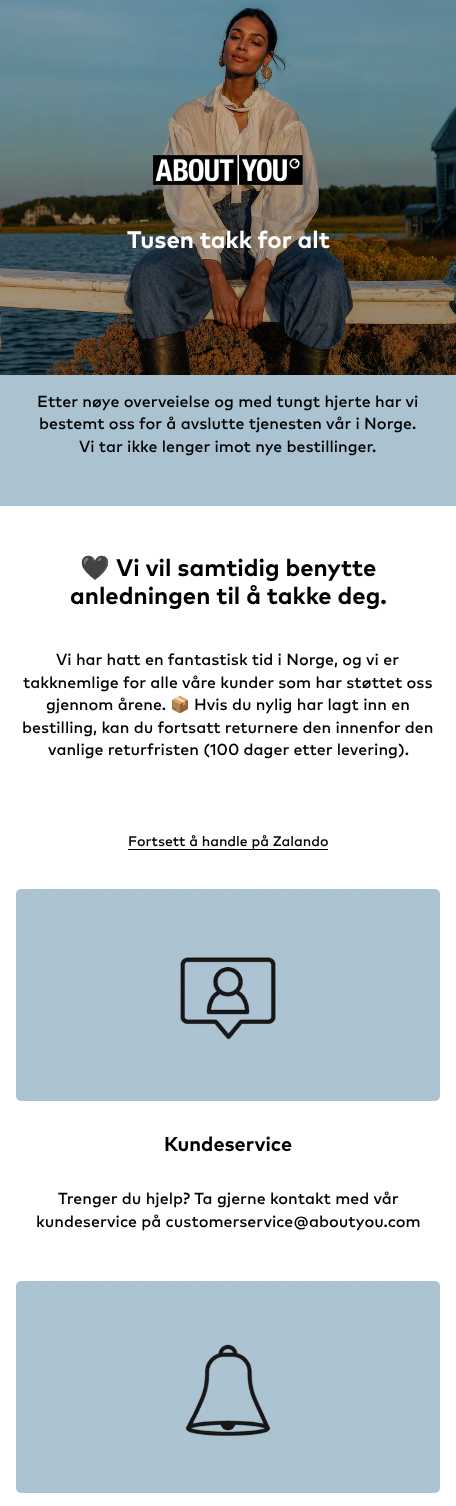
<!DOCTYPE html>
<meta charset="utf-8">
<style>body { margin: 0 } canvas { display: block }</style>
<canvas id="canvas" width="456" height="1506"></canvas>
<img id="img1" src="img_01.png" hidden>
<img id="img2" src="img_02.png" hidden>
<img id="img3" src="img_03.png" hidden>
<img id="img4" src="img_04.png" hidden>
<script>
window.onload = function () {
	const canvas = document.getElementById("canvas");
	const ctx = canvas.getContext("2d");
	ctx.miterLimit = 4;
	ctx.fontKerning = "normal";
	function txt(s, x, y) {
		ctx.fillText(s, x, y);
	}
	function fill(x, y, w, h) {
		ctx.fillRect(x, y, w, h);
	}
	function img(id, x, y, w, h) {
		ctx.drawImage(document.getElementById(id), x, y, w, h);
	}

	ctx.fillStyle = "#FFFFFF";
	fill(0, 0, 456, 1506);
	img("img1", 0, 0, 456, 375);
	img("img2", 153, 155, 150, 30);
	ctx.fillStyle = "#ABC3D1";
	fill(0, 375, 456, 131);
	ctx.fillStyle = "#000000";
	fill(128, 849, 200, 1);
	img("img3", 16, 889, 424, 212);
	img("img4", 16, 1281, 424, 212);
	ctx.font = "bold 24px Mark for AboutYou";
	ctx.fillStyle = "#FFFFFF";
	txt("Tusen takk for alt", 127, 248);
	ctx.font = "500 16px Mark for AboutYou";
	ctx.fillStyle = "#000000";
	txt("Etter nøye overveielse og med tungt hjerte har vi", 37, 407);
	txt("bestemt oss for å avslutte tjenesten vår i Norge.", 39, 429);
	txt("Vi tar ikke lenger imot nye bestillinger.", 79, 452);
	ctx.font = "bold 24px Noto Color Emoji";
	txt("🖤", 80, 576);
	ctx.font = "bold 24px Mark for AboutYou";
	txt("Vi vil samtidig benytte", 116, 576);
	txt("anledningen til å takke deg.", 70, 604);
	ctx.font = "500 16px Mark for AboutYou";
	txt("Vi har hatt en fantastisk tid i Norge, og vi er", 56, 665);
	txt("takknemlige for alle våre kunder som har støttet oss", 23, 688);
	txt("gjennom årene.", 46, 710);
	ctx.font = "16px Noto Color Emoji";
	txt("📦", 170, 710);
	ctx.font = "500 16px Mark for AboutYou";
	txt("Hvis du nylig har lagt inn en", 194, 710);
	txt("bestilling, kan du fortsatt returnere den innenfor den", 22, 733);
	txt("vanlige returfristen (100 dager etter levering).", 48, 755);
	ctx.font = "500 14px Mark for AboutYou";
	txt("Fortsett å handle på Zalando", 128, 846);
	ctx.font = "bold 20px Mark for AboutYou";
	txt("Kundeservice", 164, 1151);
	ctx.font = "500 16px Mark for AboutYou";
	txt("Trenger du hjelp? Ta gjerne kontakt med vår", 58, 1204);
	txt("kundeservice på customerservice@aboutyou.com", 36, 1227);
};
</script>
